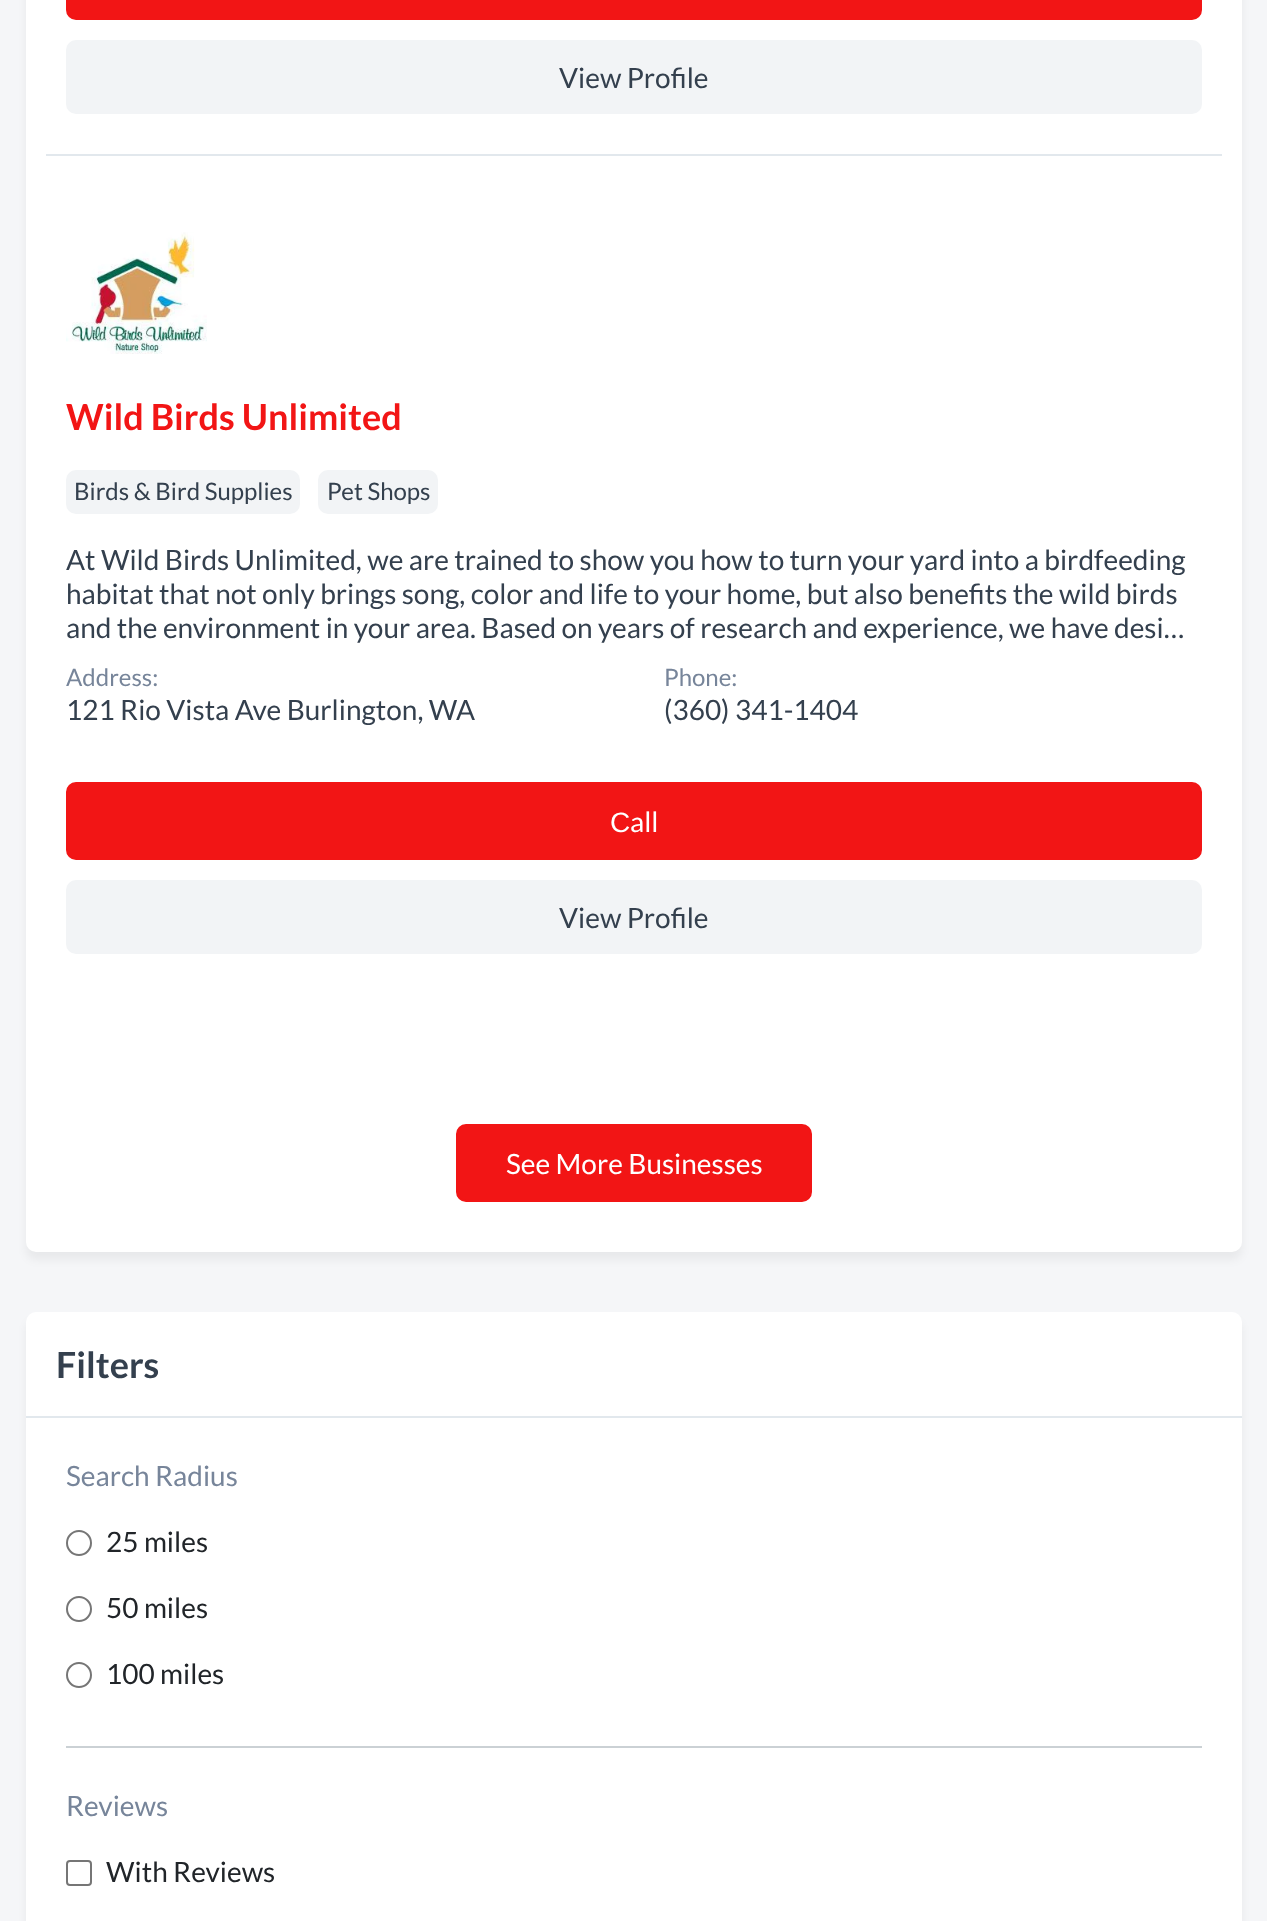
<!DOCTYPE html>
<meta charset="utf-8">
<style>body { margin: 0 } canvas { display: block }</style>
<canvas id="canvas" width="1267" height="1921"></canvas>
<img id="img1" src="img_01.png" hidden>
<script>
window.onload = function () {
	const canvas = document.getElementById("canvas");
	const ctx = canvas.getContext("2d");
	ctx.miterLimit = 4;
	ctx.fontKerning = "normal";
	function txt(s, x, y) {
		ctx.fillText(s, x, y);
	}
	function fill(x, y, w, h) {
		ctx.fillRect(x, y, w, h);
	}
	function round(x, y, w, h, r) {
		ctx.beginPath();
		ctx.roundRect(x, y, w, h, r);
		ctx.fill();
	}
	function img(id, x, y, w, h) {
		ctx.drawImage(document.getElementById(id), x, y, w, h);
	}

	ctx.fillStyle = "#F5F6F8";
	fill(0, 0, 1267, 1921);
	ctx.fillStyle = "rgba(0, 0, 0, 0.05)";
	ctx.filter = "blur(4px)";
	ctx.beginPath();
	ctx.roundRect(26, -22, 1216, 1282, 10);
	ctx.fill();
	ctx.filter = "none";
	ctx.fillStyle = "#FFFFFF";
	round(26, -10, 1216, 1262, 10);
	ctx.fillStyle = "#E2E8ED";
	fill(46, 154, 1176, 2);
	ctx.fillStyle = "#F21515";
	ctx.beginPath();
	ctx.roundRect(67, -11, 1134, 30, 9);
	ctx.fill();
	ctx.strokeStyle = "#F21515";
	ctx.lineWidth = 2;
	ctx.stroke();
	ctx.fillStyle = "#F2F4F6";
	round(66, 40, 1136, 74, 10);
	img("img1", 66, 232, 141, 122);
	round(66, 470, 234, 44, 10);
	round(318, 470, 120, 44, 10);
	ctx.fillStyle = "#F21515";
	ctx.beginPath();
	ctx.roundRect(67, 783, 1134, 76, 9);
	ctx.fill();
	ctx.stroke();
	ctx.fillStyle = "#F2F4F6";
	round(66, 880, 1136, 74, 10);
	ctx.fillStyle = "#F21515";
	ctx.beginPath();
	ctx.roundRect(457, 1125, 354, 76, 9);
	ctx.fill();
	ctx.stroke();
	ctx.fillStyle = "rgba(0, 0, 0, 0.05)";
	ctx.filter = "blur(4px)";
	ctx.beginPath();
	ctx.roundRect(26, 1320, 1216, 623, 10);
	ctx.fill();
	ctx.filter = "none";
	ctx.fillStyle = "#FFFFFF";
	round(26, 1312, 1216, 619, 10);
	ctx.fillStyle = "#E2E8ED";
	fill(26, 1416, 1216, 2);
	ctx.beginPath();
	ctx.arc(79, 1543, 12, 0, Math.PI * 2);
	ctx.strokeStyle = "#767676";
	ctx.stroke();
	ctx.beginPath();
	ctx.arc(79, 1609, 12, 0, Math.PI * 2);
	ctx.stroke();
	ctx.beginPath();
	ctx.arc(79, 1675, 12, 0, Math.PI * 2);
	ctx.stroke();
	ctx.fillStyle = "#CBD1D5";
	fill(66, 1746, 1136, 2);
	ctx.beginPath();
	ctx.roundRect(67, 1861, 24, 24, 3);
	ctx.stroke();
	ctx.font = "28px Lato";
	ctx.fillStyle = "#34404E";
	txt("View Profile", 559, 88);
	ctx.font = "bold 36px Lato";
	ctx.fillStyle = "#F21515";
	txt("Wild Birds Unlimited", 66, 430);
	ctx.font = "24px Lato";
	ctx.fillStyle = "#34404E";
	txt("Birds & Bird Supplies", 74, 500);
	txt("Pet Shops", 327, 500);
	ctx.font = "28px Lato";
	txt("At Wild Birds Unlimited, we are trained to show you how to turn your yard into a birdfeeding", 66, 570);
	txt("habitat that not only brings song, color and life to your home, but also benefits the wild birds", 66, 604);
	txt("and the environment in your area. Based on years of research and experience, we have desi…", 66, 638);
	ctx.font = "24px Lato";
	ctx.fillStyle = "#77859A";
	txt("Address:", 66, 686);
	ctx.font = "28px Lato";
	ctx.fillStyle = "#34404E";
	txt("121 Rio Vista Ave Burlington, WA", 66, 720);
	ctx.font = "24px Lato";
	ctx.fillStyle = "#77859A";
	txt("Phone:", 664, 686);
	ctx.font = "28px Lato";
	ctx.fillStyle = "#34404E";
	txt("(360) 341-1404", 664, 720);
	ctx.font = "28px Liberation Sans";
	ctx.fillStyle = "#FFFFFF";
	txt("С", 610, 832);
	ctx.font = "28px Lato";
	txt("all", 630, 832);
	ctx.fillStyle = "#34404E";
	txt("View Profile", 559, 928);
	ctx.fillStyle = "#FFFFFF";
	txt("See More Businesses", 506, 1174);
	ctx.font = "bold 36px Lato";
	ctx.fillStyle = "#34404E";
	txt("Filters", 56, 1378);
	ctx.font = "28px Lato";
	ctx.fillStyle = "#77859A";
	txt("Search Radius", 66, 1486);
	ctx.fillStyle = "#212529";
	txt("25 miles", 106, 1552);
	txt("50 miles", 106, 1618);
	txt("100 miles", 106, 1684);
	ctx.fillStyle = "#77859A";
	txt("Reviews", 66, 1816);
	ctx.fillStyle = "#212529";
	txt("With Reviews", 106, 1882);
};
</script>
